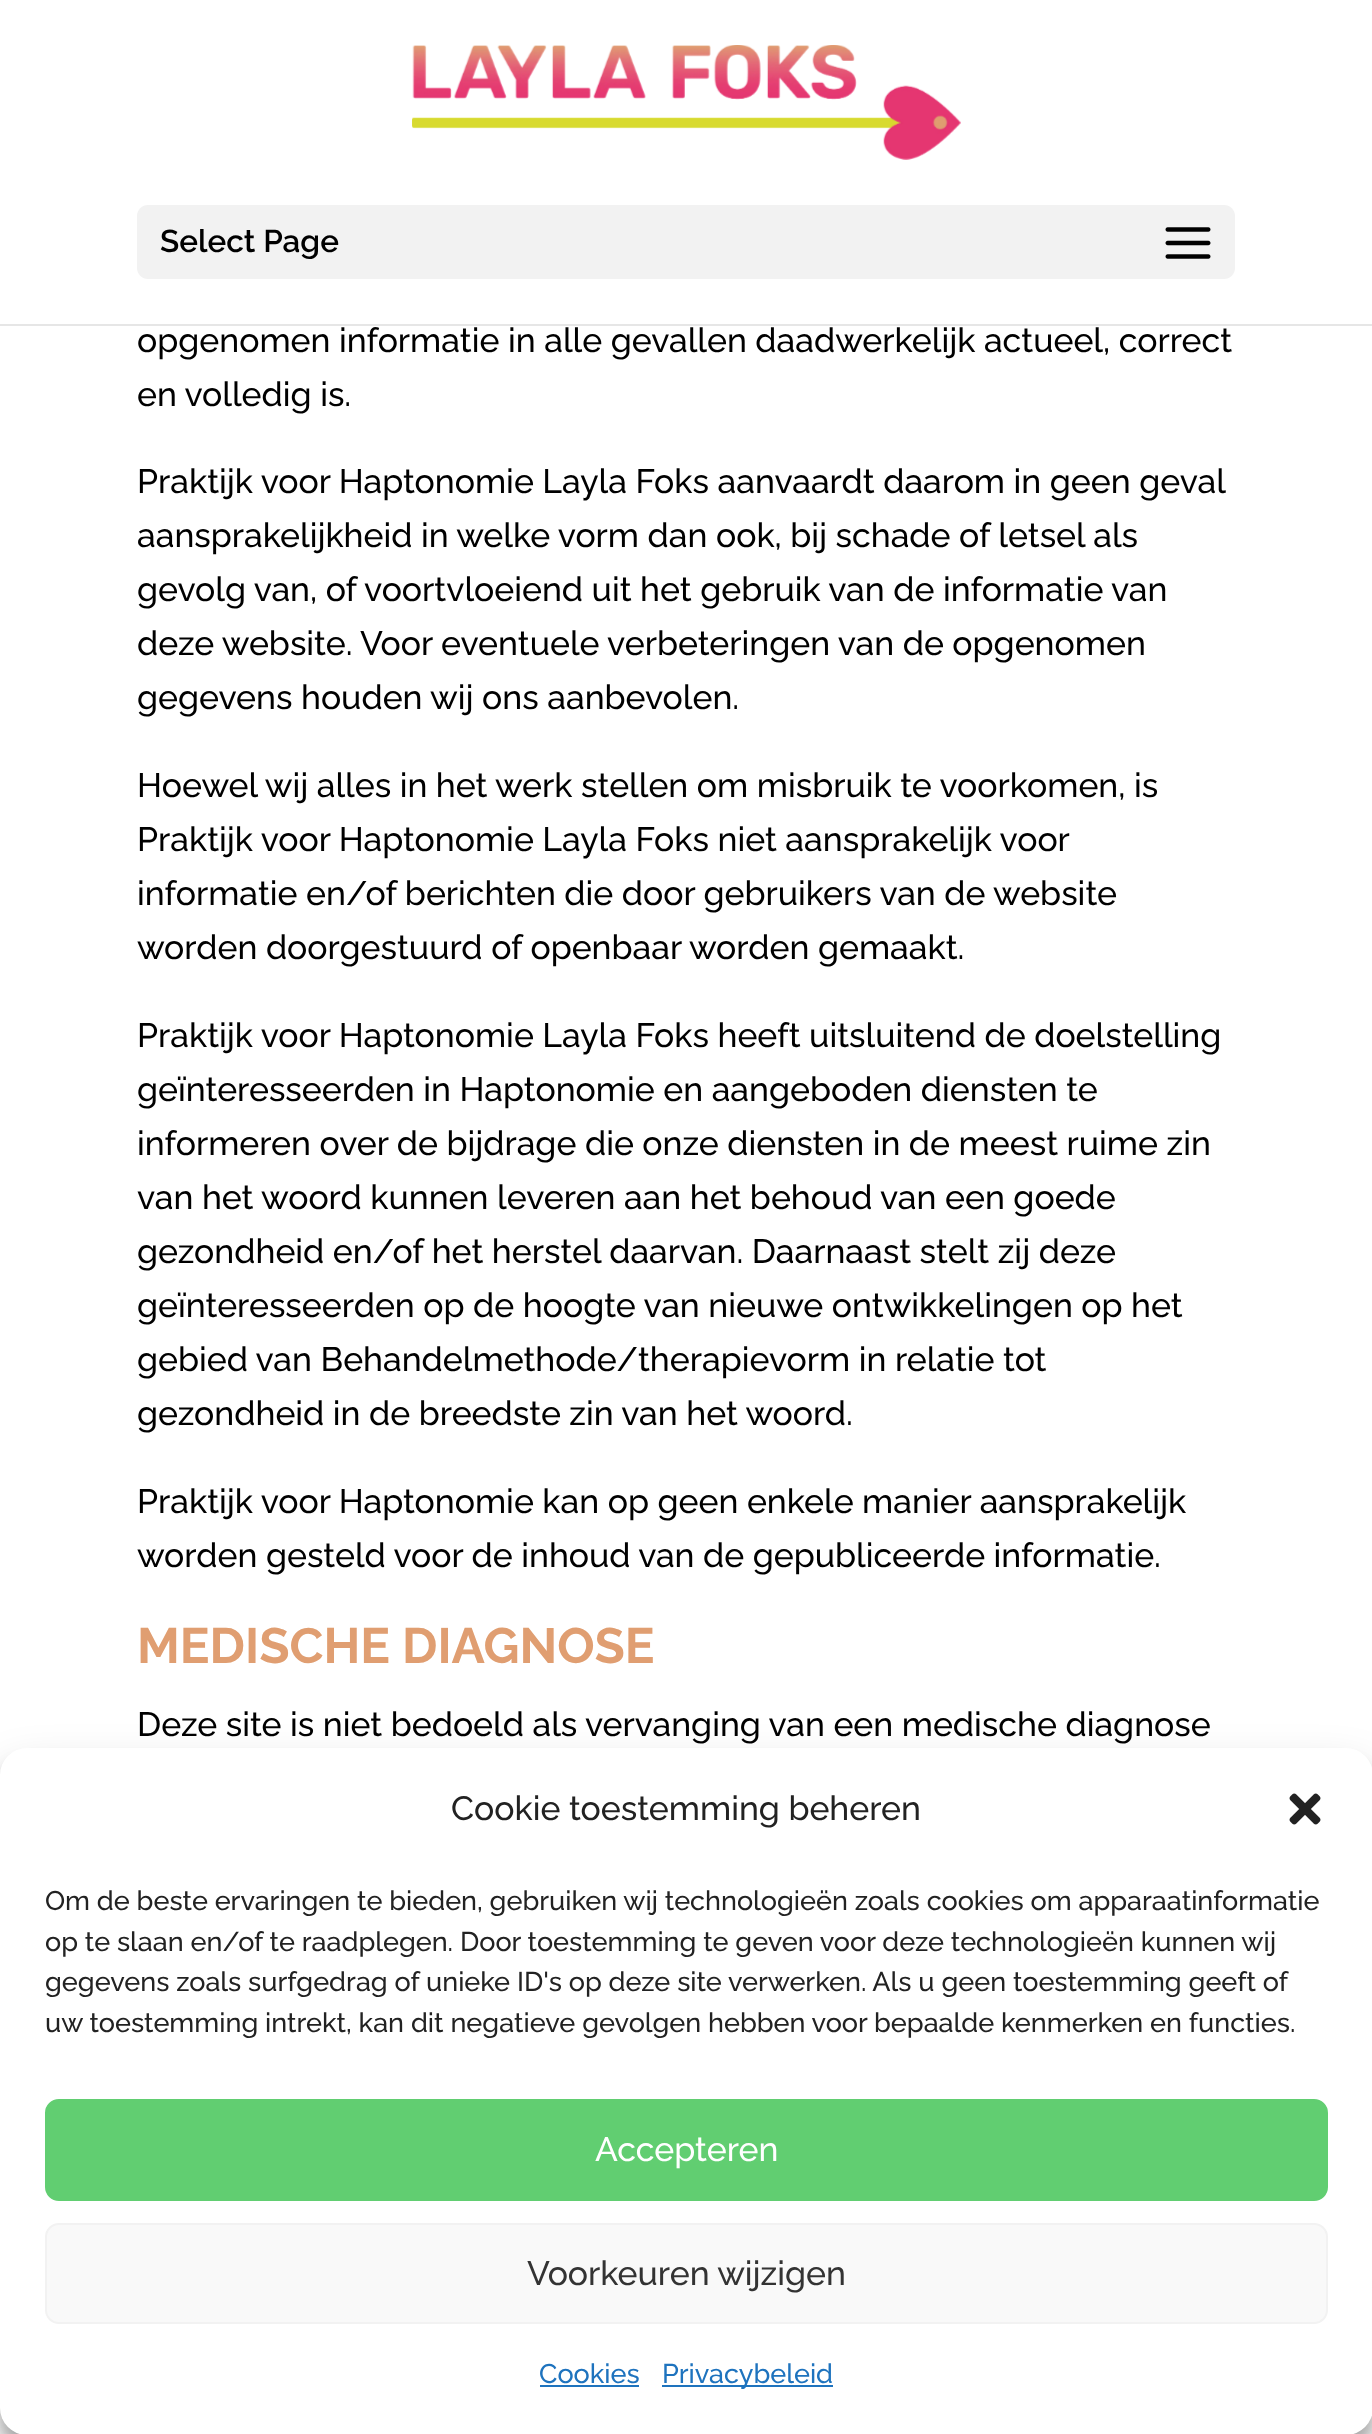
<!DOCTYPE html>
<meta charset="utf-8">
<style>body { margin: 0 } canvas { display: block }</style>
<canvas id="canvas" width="1372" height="2434"></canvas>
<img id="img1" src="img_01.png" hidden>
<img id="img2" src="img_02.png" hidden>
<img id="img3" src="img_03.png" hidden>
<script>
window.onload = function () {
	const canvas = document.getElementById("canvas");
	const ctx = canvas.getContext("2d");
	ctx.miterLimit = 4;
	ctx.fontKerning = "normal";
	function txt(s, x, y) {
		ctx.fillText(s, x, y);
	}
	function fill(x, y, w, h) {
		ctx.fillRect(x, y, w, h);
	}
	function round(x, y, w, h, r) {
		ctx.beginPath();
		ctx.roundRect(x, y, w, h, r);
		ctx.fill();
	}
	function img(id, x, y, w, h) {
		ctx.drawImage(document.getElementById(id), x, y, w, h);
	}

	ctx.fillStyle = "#FFFFFF";
	fill(0, 0, 1372, 2434);
	ctx.fillStyle = "#E6E6E6";
	ctx.beginPath();
	ctx.moveTo(0, 324);
	ctx.lineTo(0, 326);
	ctx.lineTo(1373, 326);
	ctx.lineTo(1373, 2);
	ctx.lineTo(1372, 2);
	ctx.lineTo(1372, 324);
	ctx.closePath();
	ctx.fill();
	img("img1", 412, 45, 549, 115);
	ctx.fillStyle = "#F2F2F2";
	round(137, 205, 1098, 74, 11);
	img("img2", 1165, 227, 46, 32);
	ctx.fillStyle = "rgba(0, 0, 0, 0.23)";
	ctx.filter = "blur(7px)";
	ctx.beginPath();
	ctx.roundRect(0, 1762, 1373, 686, 27);
	ctx.fill();
	ctx.filter = "none";
	ctx.fillStyle = "rgba(0, 0, 0, 0.19)";
	ctx.filter = "blur(22.5px)";
	ctx.beginPath();
	ctx.roundRect(0, 1771, 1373, 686, 27);
	ctx.fill();
	ctx.filter = "none";
	ctx.fillStyle = "#FFFFFF";
	round(0, 1748, 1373, 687, 27);
	img("img3", 1289, 1793, 32, 32);
	ctx.fillStyle = "#61CE71";
	ctx.beginPath();
	ctx.roundRect(46, 2100, 1281, 100, 13);
	ctx.fill();
	ctx.strokeStyle = "#61CE71";
	ctx.lineWidth = 2;
	ctx.stroke();
	ctx.fillStyle = "#F9F9F9";
	ctx.beginPath();
	ctx.roundRect(46, 2224, 1281, 99, 13);
	ctx.fill();
	ctx.strokeStyle = "#F2F2F2";
	ctx.stroke();
	ctx.fillStyle = "#1E73BE";
	fill(540, 2385, 99, 2);
	fill(662, 2385, 171, 2);
	ctx.font = "600 31.5px Raleway";
	ctx.fillStyle = "#000000";
	txt("Select Page", 160, 252);
	ctx.font = "500 33.75px Raleway";
	txt("opgenomen informatie in alle gevallen daadwerkelijk actueel, correct", 137, 352);
	txt("en volledig is.", 137, 406);
	txt("Praktijk voor Haptonomie Layla Foks aanvaardt daarom in geen geval", 137, 493);
	txt("aansprakelijkheid in welke vorm dan ook, bij schade of letsel als", 137, 547);
	txt("gevolg van, of voortvloeiend uit het gebruik van de informatie van", 137, 601);
	txt("deze website. Voor eventuele verbeteringen van de opgenomen", 137, 655);
	txt("gegevens houden wij ons aanbevolen.", 137, 709);
	txt("Hoewel wij alles in het werk stellen om misbruik te voorkomen, is", 137, 797);
	txt("Praktijk voor Haptonomie Layla Foks niet aansprakelijk voor", 137, 851);
	txt("informatie en/of berichten die door gebruikers van de website", 137, 905);
	txt("worden doorgestuurd of openbaar worden gemaakt.", 137, 959);
	txt("Praktijk voor Haptonomie Layla Foks heeft uitsluitend de doelstelling", 137, 1047);
	txt("geïnteresseerden in Haptonomie en aangeboden diensten te", 137, 1101);
	txt("informeren over de bijdrage die onze diensten in de meest ruime zin", 137, 1155);
	txt("van het woord kunnen leveren aan het behoud van een goede", 137, 1209);
	txt("gezondheid en/of het herstel daarvan. Daarnaast stelt zij deze", 137, 1263);
	txt("geïnteresseerden op de hoogte van nieuwe ontwikkelingen op het", 137, 1317);
	txt("gebied van Behandelmethode/therapievorm in relatie tot", 137, 1371);
	txt("gezondheid in de breedste zin van het woord.", 137, 1425);
	txt("Praktijk voor Haptonomie kan op geen enkele manier aansprakelijk", 137, 1513);
	txt("worden gesteld voor de inhoud van de gepubliceerde informatie.", 137, 1567);
	ctx.font = "bold 49.5px Raleway";
	ctx.fillStyle = "#E09E71";
	txt("MEDISCHE DIAGNOSE", 137, 1663);
	ctx.font = "500 33.75px Raleway";
	ctx.fillStyle = "#000000";
	txt("Deze site is niet bedoeld als vervanging van een medische diagnose", 137, 1736);
	ctx.fillStyle = "#222222";
	txt("Cookie toestemming beheren", 451, 1820);
	ctx.font = "500 27px Raleway";
	txt("Om de beste ervaringen te bieden, gebruiken wij technologieën zoals cookies om apparaatinformatie", 45, 1910);
	txt("op te slaan en/of te raadplegen. Door toestemming te geven voor deze technologieën kunnen wij", 45, 1951);
	txt("gegevens zoals surfgedrag of unieke ID's op deze site verwerken. Als u geen toestemming geeft of", 45, 1991);
	txt("uw toestemming intrekt, kan dit negatieve gevolgen hebben voor bepaalde kenmerken en functies.", 45, 2032);
	ctx.font = "500 33.75px Raleway";
	ctx.fillStyle = "#FFFFFF";
	txt("Accepteren", 595, 2161);
	ctx.fillStyle = "#333333";
	txt("Voorkeuren wijzigen", 527, 2285);
	ctx.font = "500 27px Raleway";
	ctx.fillStyle = "#1E73BE";
	txt("Cookies", 539, 2383);
	txt("Privacybeleid", 662, 2383);
};
</script>
